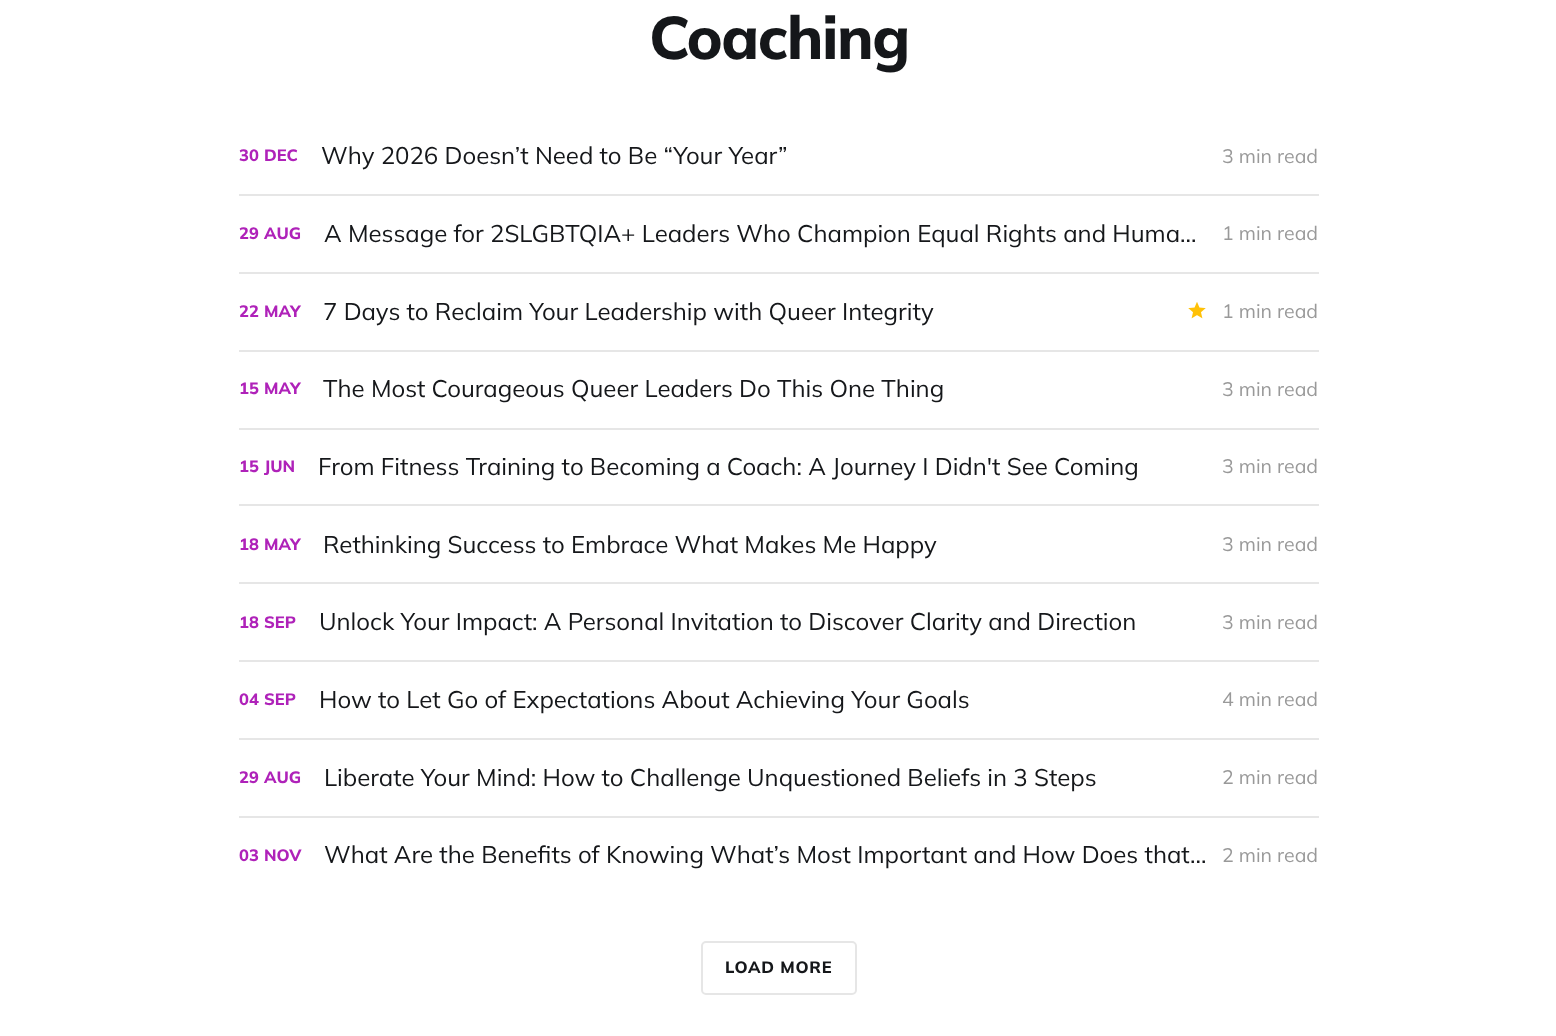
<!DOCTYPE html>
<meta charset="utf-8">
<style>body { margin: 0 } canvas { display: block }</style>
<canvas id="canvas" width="1556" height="1036"></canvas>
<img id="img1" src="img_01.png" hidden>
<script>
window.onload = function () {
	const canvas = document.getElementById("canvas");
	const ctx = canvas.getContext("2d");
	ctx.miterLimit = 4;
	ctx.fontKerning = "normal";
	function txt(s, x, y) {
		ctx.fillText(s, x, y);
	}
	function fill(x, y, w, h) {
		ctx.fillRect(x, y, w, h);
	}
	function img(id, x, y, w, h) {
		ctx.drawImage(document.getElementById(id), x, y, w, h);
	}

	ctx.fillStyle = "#FFFFFF";
	fill(0, 0, 1556, 1036);
	ctx.fillStyle = "#E6E6E6";
	fill(239, 194, 1080, 2);
	fill(239, 272, 1080, 2);
	img("img1", 1188, 302, 18, 17);
	fill(239, 350, 1080, 2);
	fill(239, 428, 1080, 2);
	fill(239, 504, 1080, 2);
	fill(239, 582, 1080, 2);
	fill(239, 660, 1080, 2);
	fill(239, 738, 1080, 2);
	fill(239, 816, 1080, 2);
	ctx.beginPath();
	ctx.roundRect(702, 942, 154, 52, 4);
	ctx.strokeStyle = "#E6E6E6";
	ctx.lineWidth = 2;
	ctx.stroke();
	ctx.letterSpacing = "-1.5px";
	ctx.font = "200 60px Mulish";
	ctx.fillStyle = "#15171A";
	txt("Coaching", 649, 59);
	ctx.letterSpacing = "0px";
	ctx.font = "200 16.5px Mulish";
	ctx.fillStyle = "#AF22B9";
	txt("30", 239, 161);
	txt("DEC", 264, 161);
	ctx.font = "200 24px 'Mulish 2'";
	ctx.fillStyle = "#15171A";
	txt("Why 2026 Doesn’t Need to Be “Your Year”", 321, 164);
	ctx.font = "200 19.5px 'Mulish 2'";
	ctx.fillStyle = "#999999";
	txt("3 min read", 1222, 163);
	ctx.font = "200 16.5px Mulish";
	ctx.fillStyle = "#AF22B9";
	txt("29", 239, 239);
	txt("AUG", 264, 239);
	ctx.font = "200 24px 'Mulish 2'";
	ctx.fillStyle = "#15171A";
	txt("A Message for 2SLGBTQIA+ Leaders Who Champion Equal Rights and Huma…", 324, 242);
	ctx.font = "200 19.5px 'Mulish 2'";
	ctx.fillStyle = "#999999";
	txt("1 min read", 1222, 240);
	ctx.font = "200 16.5px Mulish";
	ctx.fillStyle = "#AF22B9";
	txt("22", 239, 317);
	txt("MAY", 264, 317);
	ctx.font = "200 24px 'Mulish 2'";
	ctx.fillStyle = "#15171A";
	txt("7 Days to Reclaim Your Leadership with Queer Integrity", 323, 320);
	ctx.font = "200 19.5px 'Mulish 2'";
	ctx.fillStyle = "#999999";
	txt("1 min read", 1222, 318);
	ctx.font = "200 16.5px Mulish";
	ctx.fillStyle = "#AF22B9";
	txt("15", 239, 394);
	txt("MAY", 264, 394);
	ctx.font = "200 24px 'Mulish 2'";
	ctx.fillStyle = "#15171A";
	txt("The Most Courageous Queer Leaders Do This One Thing", 323, 397);
	ctx.font = "200 19.5px 'Mulish 2'";
	ctx.fillStyle = "#999999";
	txt("3 min read", 1222, 396);
	ctx.font = "200 16.5px Mulish";
	ctx.fillStyle = "#AF22B9";
	txt("15", 239, 472);
	txt("JUN", 264, 472);
	ctx.font = "200 24px 'Mulish 2'";
	ctx.fillStyle = "#15171A";
	txt("From Fitness Training to Becoming a Coach: A Journey I Didn't See Coming", 318, 475);
	ctx.font = "200 19.5px 'Mulish 2'";
	ctx.fillStyle = "#999999";
	txt("3 min read", 1222, 473);
	ctx.font = "200 16.5px Mulish";
	ctx.fillStyle = "#AF22B9";
	txt("18", 239, 550);
	txt("MAY", 264, 550);
	ctx.font = "200 24px 'Mulish 2'";
	ctx.fillStyle = "#15171A";
	txt("Rethinking Success to Embrace What Makes Me Happy", 323, 553);
	ctx.font = "200 19.5px 'Mulish 2'";
	ctx.fillStyle = "#999999";
	txt("3 min read", 1222, 551);
	ctx.font = "200 16.5px Mulish";
	ctx.fillStyle = "#AF22B9";
	txt("18", 239, 628);
	txt("SEP", 264, 628);
	ctx.font = "200 24px 'Mulish 2'";
	ctx.fillStyle = "#15171A";
	txt("Unlock Your Impact: A Personal Invitation to Discover Clarity and Direction", 319, 630);
	ctx.font = "200 19.5px 'Mulish 2'";
	ctx.fillStyle = "#999999";
	txt("3 min read", 1222, 629);
	ctx.font = "200 16.5px Mulish";
	ctx.fillStyle = "#AF22B9";
	txt("04", 239, 705);
	txt("SEP", 264, 705);
	ctx.font = "200 24px 'Mulish 2'";
	ctx.fillStyle = "#15171A";
	txt("How to Let Go of Expectations About Achieving Your Goals", 319, 708);
	ctx.font = "200 19.5px 'Mulish 2'";
	ctx.fillStyle = "#999999";
	txt("4 min read", 1222, 706);
	ctx.font = "200 16.5px Mulish";
	ctx.fillStyle = "#AF22B9";
	txt("29", 239, 783);
	txt("AUG", 264, 783);
	ctx.font = "200 24px 'Mulish 2'";
	ctx.fillStyle = "#15171A";
	txt("Liberate Your Mind: How to Challenge Unquestioned Beliefs in 3 Steps", 324, 786);
	ctx.font = "200 19.5px 'Mulish 2'";
	ctx.fillStyle = "#999999";
	txt("2 min read", 1222, 784);
	ctx.font = "200 16.5px Mulish";
	ctx.fillStyle = "#AF22B9";
	txt("03", 239, 861);
	txt("NOV", 264, 861);
	ctx.font = "200 24px 'Mulish 2'";
	ctx.fillStyle = "#15171A";
	txt("What Are the Benefits of Knowing What’s Most Important and How Does that…", 324, 863);
	ctx.font = "200 19.5px 'Mulish 2'";
	ctx.fillStyle = "#999999";
	txt("2 min read", 1222, 862);
	ctx.letterSpacing = "0.75px";
	ctx.font = "200 16.5px Mulish";
	ctx.fillStyle = "#15171A";
	txt("LOAD MORE", 725, 973);
};
</script>
